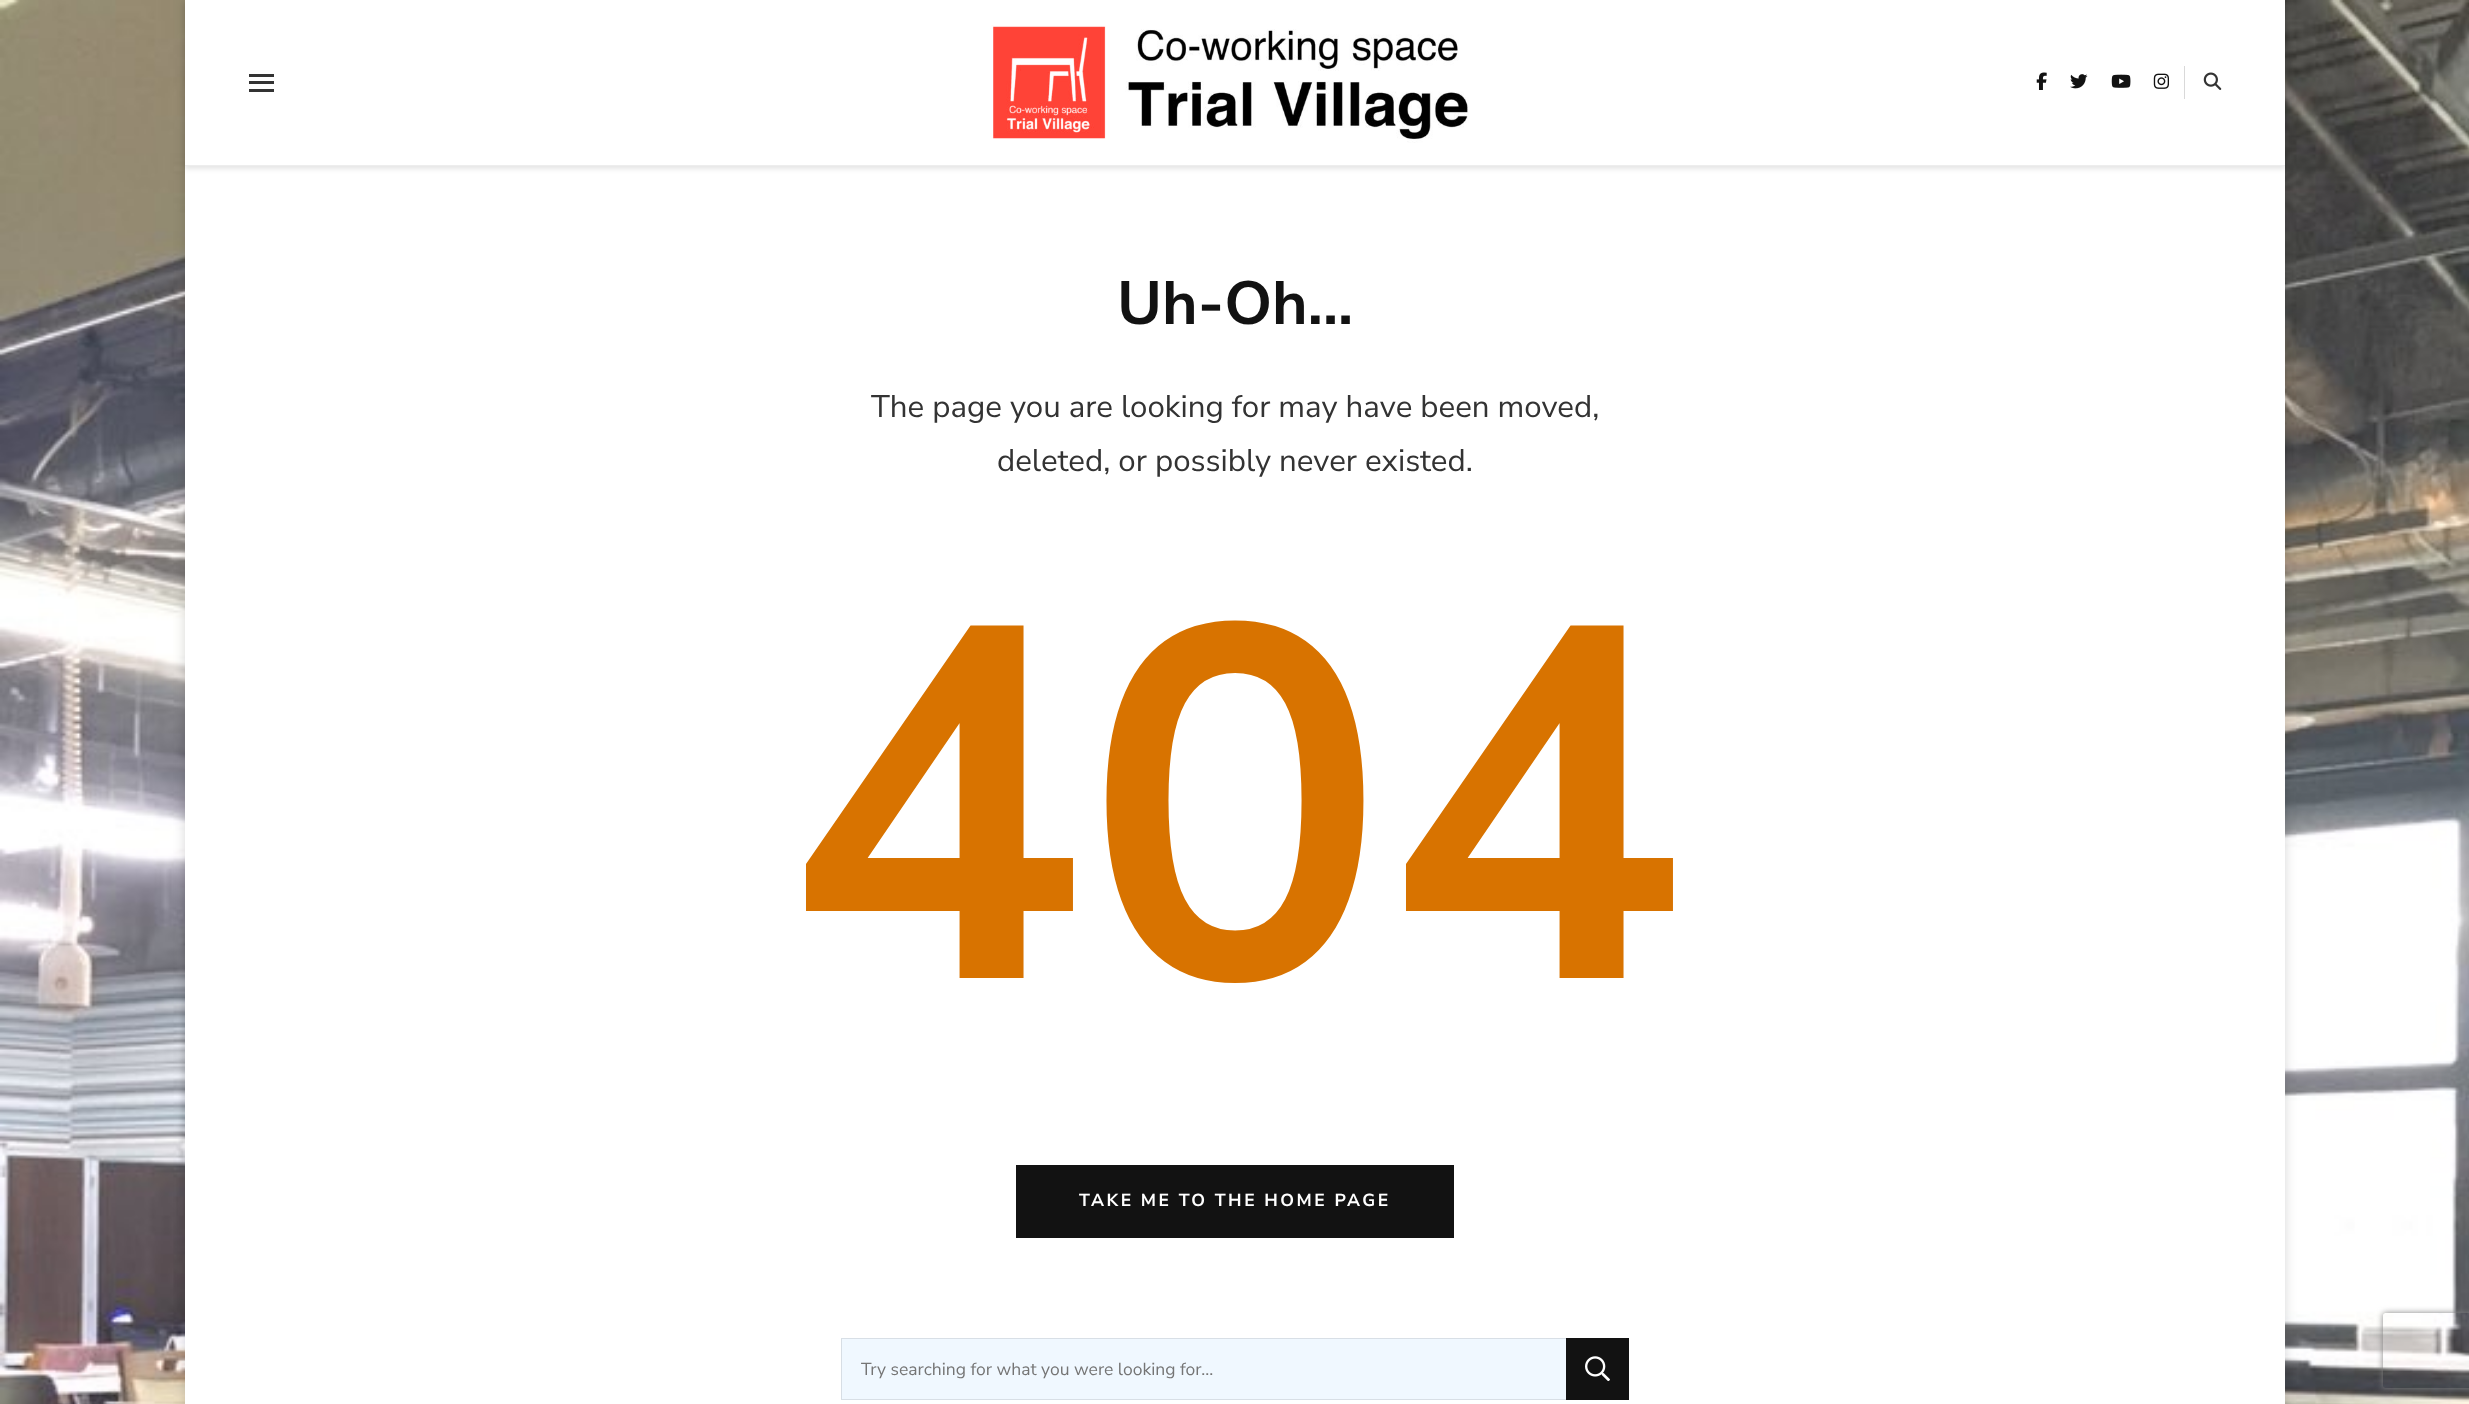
<!DOCTYPE html>
<meta charset="utf-8">
<style>body { margin: 0 } canvas { display: block }</style>
<canvas id="canvas" width="2469" height="1404"></canvas>
<img id="img1" src="img_01.png" hidden>
<img id="img2" src="img_02.png" hidden>
<img id="img3" src="img_03.png" hidden>
<img id="img4" src="img_04.png" hidden>
<img id="img5" src="img_05.png" hidden>
<img id="img6" src="img_06.png" hidden>
<img id="img7" src="img_07.png" hidden>
<img id="img8" src="img_08.png" hidden>
<script>
window.onload = function () {
	const canvas = document.getElementById("canvas");
	const ctx = canvas.getContext("2d");
	ctx.miterLimit = 4;
	ctx.fontKerning = "normal";
	function txt(s, x, y) {
		ctx.fillText(s, x, y);
	}
	function fill(x, y, w, h) {
		ctx.fillRect(x, y, w, h);
	}
	function img(id, x, y, w, h) {
		ctx.drawImage(document.getElementById(id), x, y, w, h);
	}

	ctx.fillStyle = "#FFFFFF";
	fill(0, 0, 2469, 1404);
	img("img1", 0, 0, 2469, 1404);
	ctx.fillStyle = "rgba(0, 0, 0, 0.16)";
	ctx.filter = "blur(6px)";
	ctx.beginPath();
	ctx.rect(185, 0, 2100, 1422);
	ctx.fill();
	ctx.filter = "none";
	ctx.fillStyle = "#FFFFFF";
	fill(185, 0, 2100, 1404);
	ctx.save();
	ctx.beginPath();
	ctx.moveTo(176, 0);
	ctx.lineTo(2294, 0);
	ctx.lineTo(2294, 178);
	ctx.lineTo(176, 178);
	ctx.closePath();
	ctx.moveTo(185, 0);
	ctx.lineTo(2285, 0);
	ctx.lineTo(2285, 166);
	ctx.lineTo(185, 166);
	ctx.closePath();
	ctx.clip("evenodd");
	ctx.fillStyle = "rgba(0, 0, 0, 0.1)";
	ctx.filter = "blur(2.5px)";
	ctx.beginPath();
	ctx.rect(185, 3, 2100, 166);
	ctx.fill();
	ctx.filter = "none";
	ctx.restore();
	ctx.fillStyle = "#333333";
	fill(249, 74, 25, 3);
	fill(249, 81, 25, 3);
	fill(249, 89, 25, 3);
	img("img2", 990, 25, 479, 118);
	img("img3", 2036, 72, 11, 18);
	img("img4", 2070, 74, 18, 15);
	img("img5", 2111, 74, 20, 14);
	img("img6", 2153, 73, 16, 16);
	ctx.fillStyle = "#D9D9D9";
	fill(2184, 66, 1, 33);
	img("img7", 2203, 72, 19, 18);
	ctx.fillStyle = "#EDEDED";
	fill(185, 165, 2100, 1);
	ctx.fillStyle = "#121212";
	fill(1016, 1165, 438, 73);
	ctx.fillStyle = "#F0F8FF";
	fill(841, 1338, 725, 62);
	ctx.fillStyle = "#D8DFE6";
	ctx.beginPath();
	ctx.moveTo(841, 1338);
	ctx.lineTo(1566, 1338);
	ctx.lineTo(1566, 1339);
	ctx.lineTo(842, 1339);
	ctx.closePath();
	ctx.fill();
	ctx.beginPath();
	ctx.moveTo(1566, 1400);
	ctx.lineTo(841, 1400);
	ctx.lineTo(842, 1399);
	ctx.lineTo(1566, 1399);
	ctx.closePath();
	ctx.fill();
	ctx.fillStyle = "rgba(0, 0, 0, 0.1)";
	ctx.beginPath();
	ctx.moveTo(841, 1400);
	ctx.lineTo(841, 1338);
	ctx.lineTo(842, 1339);
	ctx.lineTo(842, 1399);
	ctx.closePath();
	ctx.fill();
	ctx.fillStyle = "#121212";
	fill(1566, 1338, 63, 62);
	img("img8", 1585, 1356, 25, 25);
	ctx.save();
	ctx.beginPath();
	ctx.moveTo(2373, 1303);
	ctx.lineTo(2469, 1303);
	ctx.lineTo(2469, 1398);
	ctx.lineTo(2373, 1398);
	ctx.closePath();
	ctx.moveTo(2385.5, 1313);
	ctx.lineTo(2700.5, 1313);
	ctx.bezierCurveTo(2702, 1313, 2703, 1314, 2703, 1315.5);
	ctx.lineTo(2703, 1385.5);
	ctx.bezierCurveTo(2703, 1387, 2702, 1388, 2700.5, 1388);
	ctx.lineTo(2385.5, 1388);
	ctx.bezierCurveTo(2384, 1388, 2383, 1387, 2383, 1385.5);
	ctx.lineTo(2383, 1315.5);
	ctx.bezierCurveTo(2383, 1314, 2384, 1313, 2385.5, 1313);
	ctx.closePath();
	ctx.clip("evenodd");
	ctx.fillStyle = "#808080";
	ctx.filter = "blur(3px)";
	ctx.beginPath();
	ctx.roundRect(2383, 1313, 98, 75, 2.5);
	ctx.fill();
	ctx.filter = "none";
	ctx.restore();
	ctx.font = "bold 61px Nunito Sans";
	txt("Uh-Oh...", 1117, 324);
	ctx.font = "31.25px Nunito Sans";
	ctx.fillStyle = "#333333";
	txt("The page you are looking for may have been moved,", 871, 417);
	txt("deleted, or possibly never existed.", 997, 471);
	ctx.font = "bold 500px Nunito Sans";
	ctx.fillStyle = "#D87300";
	txt("404", 785, 978);
	ctx.letterSpacing = "2.5px";
	ctx.font = "bold 17.5px Nunito Sans";
	ctx.fillStyle = "#FFFFFF";
	txt("TAKE ME TO THE HOME PAGE", 1079, 1206);
	ctx.letterSpacing = "0px";
	ctx.font = "17.5px Nunito Sans";
	ctx.fillStyle = "#757575";
	txt("Try searching for what you were looking for…", 861, 1375);
};
</script>
